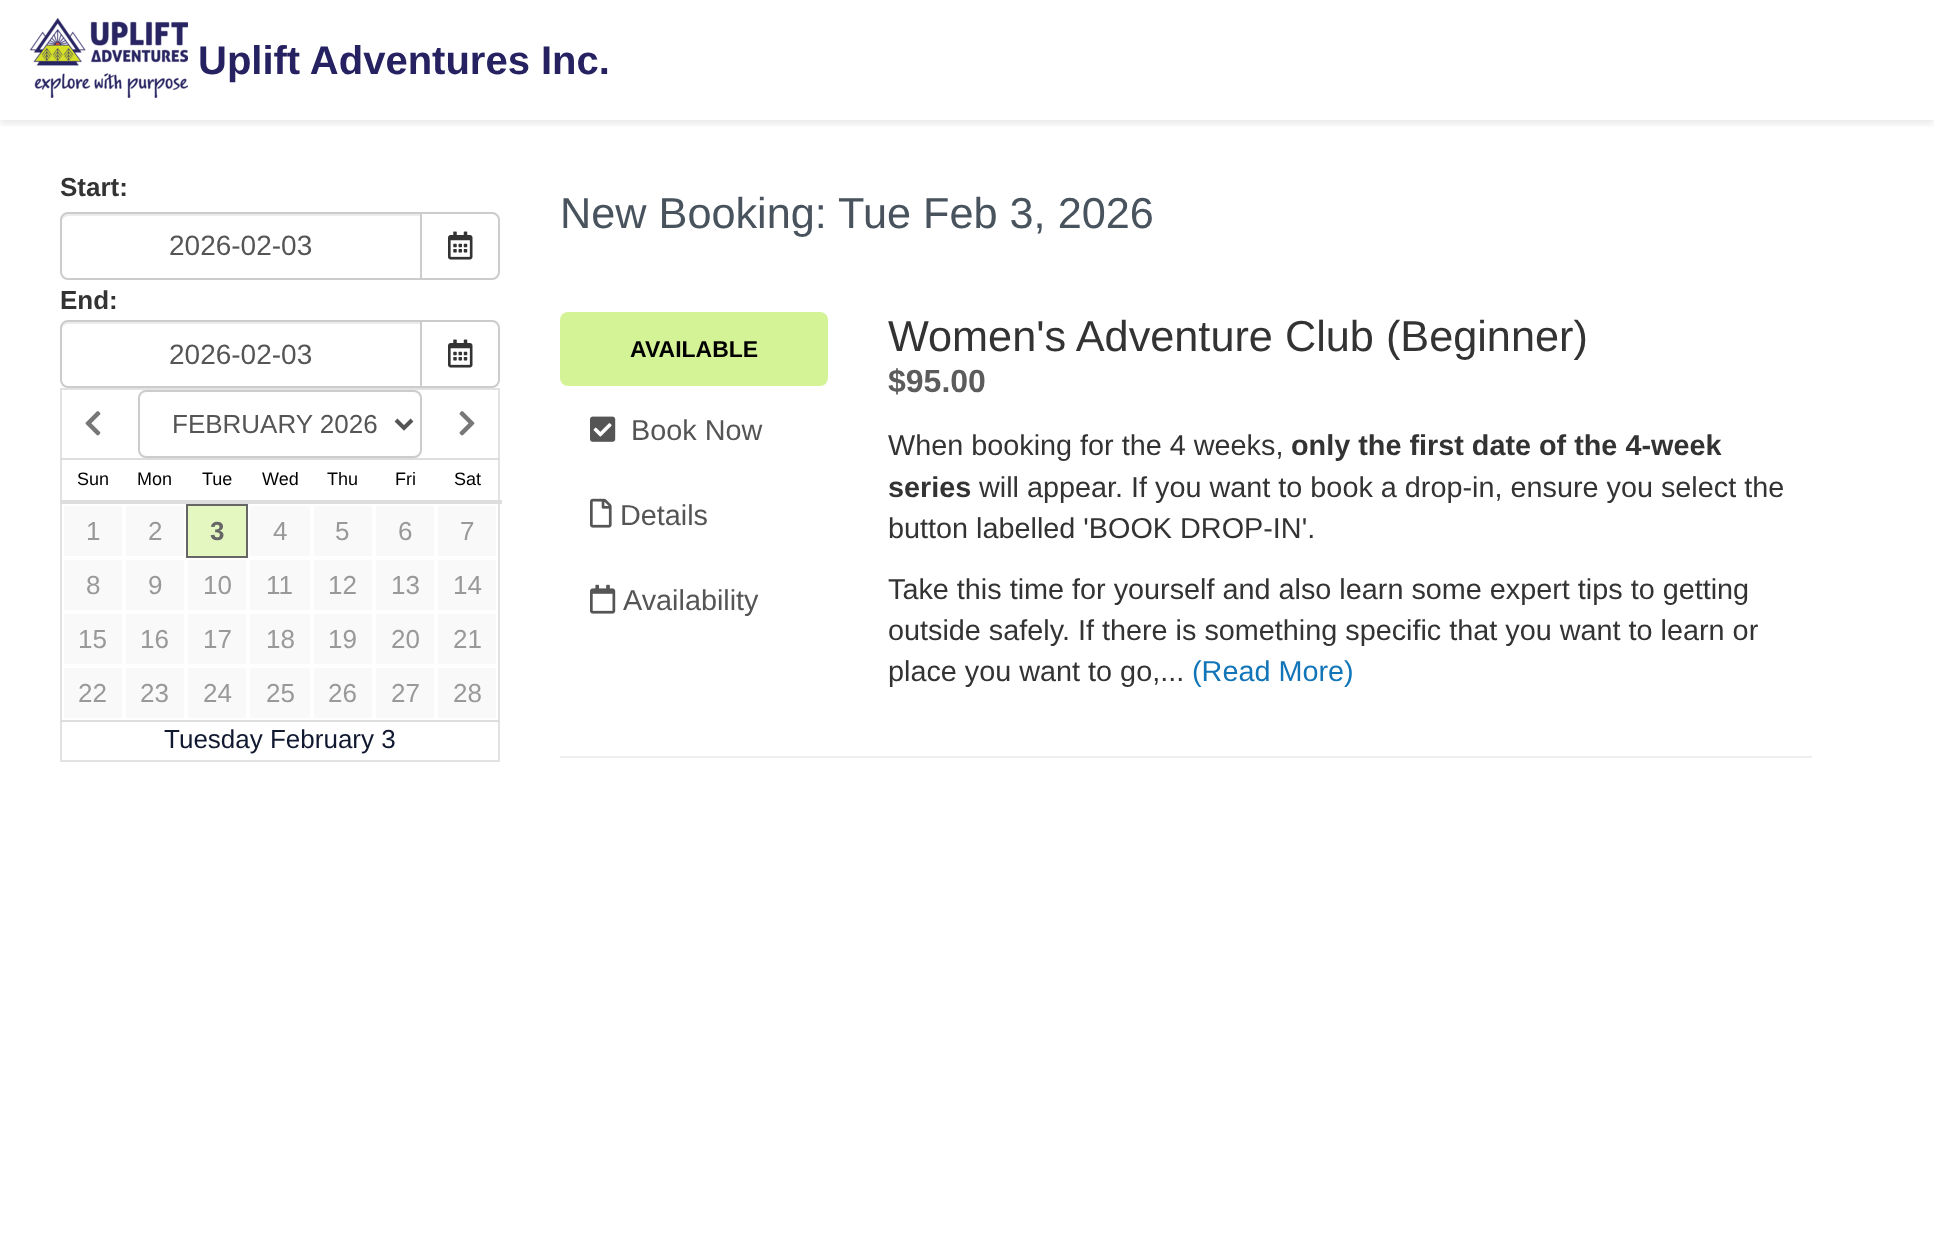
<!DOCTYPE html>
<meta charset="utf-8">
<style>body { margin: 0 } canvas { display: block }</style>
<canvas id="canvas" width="1934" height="1249"></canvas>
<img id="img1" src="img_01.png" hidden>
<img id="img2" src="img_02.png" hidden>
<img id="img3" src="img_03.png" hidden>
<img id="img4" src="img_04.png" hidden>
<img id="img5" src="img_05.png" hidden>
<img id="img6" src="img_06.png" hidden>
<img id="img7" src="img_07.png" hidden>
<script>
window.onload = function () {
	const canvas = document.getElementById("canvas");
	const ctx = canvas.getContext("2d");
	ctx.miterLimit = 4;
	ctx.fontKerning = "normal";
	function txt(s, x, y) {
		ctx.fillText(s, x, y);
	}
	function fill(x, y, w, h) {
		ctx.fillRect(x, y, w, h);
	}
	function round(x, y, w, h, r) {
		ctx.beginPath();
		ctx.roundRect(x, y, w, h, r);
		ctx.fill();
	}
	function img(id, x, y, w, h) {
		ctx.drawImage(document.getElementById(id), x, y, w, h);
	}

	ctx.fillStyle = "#FFFFFF";
	fill(0, 0, 1934, 1249);
	ctx.save();
	ctx.beginPath();
	ctx.rect(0, 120, 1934, 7);
	ctx.clip();
	ctx.fillStyle = "rgba(50, 50, 50, 0.1)";
	ctx.filter = "blur(3px)";
	ctx.beginPath();
	ctx.rect(0, 4, 1934, 120);
	ctx.fill();
	ctx.filter = "none";
	ctx.restore();
	img("img1", 30, 18, 158, 80);
	ctx.fillStyle = "#ECECEC";
	ctx.beginPath();
	ctx.moveTo(68, 216);
	ctx.lineTo(420, 216);
	ctx.lineTo(420, 214);
	ctx.lineTo(68, 214);
	ctx.bezierCurveTo(65, 214, 62, 217, 62, 220);
	ctx.lineTo(62, 222);
	ctx.bezierCurveTo(62, 219, 65, 216, 68, 216);
	ctx.closePath();
	ctx.fill();
	ctx.beginPath();
	ctx.roundRect(61, 213, 360, 66, [7, 0, 0, 7]);
	ctx.strokeStyle = "#CCCCCC";
	ctx.lineWidth = 2;
	ctx.stroke();
	ctx.fillStyle = "#FFFFFF";
	ctx.beginPath();
	ctx.roundRect(421, 213, 78, 66, [0, 7, 7, 0]);
	ctx.fill();
	ctx.stroke();
	img("img2", 448, 231, 25, 29);
	ctx.fillStyle = "#ECECEC";
	ctx.beginPath();
	ctx.moveTo(68, 324);
	ctx.lineTo(420, 324);
	ctx.lineTo(420, 322);
	ctx.lineTo(68, 322);
	ctx.bezierCurveTo(65, 322, 62, 325, 62, 328);
	ctx.lineTo(62, 330);
	ctx.bezierCurveTo(62, 327, 65, 324, 68, 324);
	ctx.closePath();
	ctx.fill();
	ctx.beginPath();
	ctx.roundRect(61, 321, 360, 66, [7, 0, 0, 7]);
	ctx.stroke();
	ctx.fillStyle = "#FFFFFF";
	ctx.beginPath();
	ctx.roundRect(421, 321, 78, 66, [0, 7, 7, 0]);
	ctx.fill();
	ctx.stroke();
	img("img2", 448, 339, 25, 29);
	ctx.fillStyle = "#E2E2E2";
	fill(60, 388, 440, 2);
	fill(498, 388, 2, 374);
	fill(60, 760, 440, 2);
	fill(60, 388, 2, 374);
	img("img3", 85, 411, 16, 25);
	ctx.beginPath();
	ctx.roundRect(139, 391, 282, 66, 7);
	ctx.stroke();
	ctx.beginPath();
	ctx.moveTo(396, 420);
	ctx.lineTo(404, 428);
	ctx.lineTo(412, 420);
	ctx.strokeStyle = "#555555";
	ctx.lineWidth = 4;
	ctx.stroke();
	img("img4", 459, 411, 16, 25);
	ctx.fillStyle = "#DDDDDD";
	fill(60, 458, 440, 2);
	fill(60, 500, 442, 4);
	ctx.fillStyle = "#F9F9F9";
	fill(64, 506, 58, 50);
	fill(126, 506, 58, 50);
	ctx.fillStyle = "#E5F7C0";
	ctx.beginPath();
	ctx.rect(187, 505, 60, 52);
	ctx.fill();
	ctx.strokeStyle = "#666666";
	ctx.lineWidth = 2;
	ctx.stroke();
	ctx.fillStyle = "#F9F9F9";
	fill(250, 506, 60, 50);
	fill(314, 506, 58, 50);
	fill(376, 506, 58, 50);
	fill(438, 506, 58, 50);
	fill(64, 560, 58, 50);
	fill(126, 560, 58, 50);
	fill(188, 560, 58, 50);
	fill(250, 560, 60, 50);
	fill(314, 560, 58, 50);
	fill(376, 560, 58, 50);
	fill(438, 560, 58, 50);
	fill(64, 614, 58, 50);
	fill(126, 614, 58, 50);
	fill(188, 614, 58, 50);
	fill(250, 614, 60, 50);
	fill(314, 614, 58, 50);
	fill(376, 614, 58, 50);
	fill(438, 614, 58, 50);
	fill(64, 668, 58, 50);
	fill(126, 668, 58, 50);
	fill(188, 668, 58, 50);
	fill(250, 668, 60, 50);
	fill(314, 668, 58, 50);
	fill(376, 668, 58, 50);
	fill(438, 668, 58, 50);
	ctx.fillStyle = "#DDDDDD";
	fill(60, 720, 440, 2);
	ctx.fillStyle = "#EEEEEE";
	fill(560, 756, 1252, 2);
	ctx.fillStyle = "#D4F296";
	round(560, 312, 268, 74, 8);
	img("img5", 590, 416, 26, 26);
	img("img6", 590, 498, 22, 30);
	img("img7", 590, 584, 26, 30);
	ctx.font = "bold 40px Liberation Sans";
	ctx.fillStyle = "#262261";
	txt("Uplift Adventures Inc.", 198, 74);
	ctx.font = "bold 26px Liberation Sans";
	ctx.fillStyle = "#333333";
	txt("Start:", 60, 196);
	ctx.font = "28px Liberation Sans";
	ctx.fillStyle = "#555555";
	txt("2026-02-03", 169, 255);
	ctx.font = "bold 26px Liberation Sans";
	ctx.fillStyle = "#333333";
	txt("End:", 60, 309);
	ctx.font = "28px Liberation Sans";
	ctx.fillStyle = "#555555";
	txt("2026-02-03", 169, 364);
	ctx.font = "26px Liberation Sans";
	txt("FEBRUARY 2026", 172, 433);
	ctx.font = "18px Liberation Sans";
	ctx.fillStyle = "#000000";
	txt("Sun", 77, 485);
	txt("Mon", 137, 485);
	txt("Tue", 202, 485);
	txt("Wed", 262, 485);
	txt("Thu", 327, 485);
	txt("Fri", 395, 485);
	txt("Sat", 454, 485);
	ctx.font = "26px Liberation Sans";
	ctx.fillStyle = "#999999";
	txt("1", 86, 540);
	txt("2", 148, 540);
	ctx.font = "bold 26px Liberation Sans";
	ctx.fillStyle = "#666666";
	txt("3", 210, 540);
	ctx.font = "26px Liberation Sans";
	ctx.fillStyle = "#999999";
	txt("4", 273, 540);
	txt("5", 335, 540);
	txt("6", 398, 540);
	txt("7", 460, 540);
	txt("8", 86, 594);
	txt("9", 148, 594);
	txt("10", 203, 594);
	txt("11", 266, 594);
	txt("12", 328, 594);
	txt("13", 391, 594);
	txt("14", 453, 594);
	txt("15", 78, 648);
	txt("16", 140, 648);
	txt("17", 203, 648);
	txt("18", 266, 648);
	txt("19", 328, 648);
	txt("20", 391, 648);
	txt("21", 453, 648);
	txt("22", 78, 702);
	txt("23", 140, 702);
	txt("24", 203, 702);
	txt("25", 266, 702);
	txt("26", 328, 702);
	txt("27", 391, 702);
	txt("28", 453, 702);
	ctx.fillStyle = "#111931";
	txt("Tuesday February 3", 164, 748);
	ctx.font = "43.25px Liberation Sans";
	ctx.fillStyle = "#48535E";
	txt("New Booking: Tue Feb 3, 2026", 560, 228);
	ctx.font = "bold 23px Liberation Sans";
	ctx.fillStyle = "#000000";
	txt("AVAILABLE", 630, 357);
	ctx.font = "28.8px Liberation Sans";
	ctx.fillStyle = "#555555";
	txt("Book Now", 631, 440);
	txt("Details", 620, 525);
	txt("Availability", 623, 610);
	ctx.font = "43.25px Liberation Sans";
	ctx.fillStyle = "#333333";
	txt("Women's Adventure Club (Beginner)", 888, 351);
	ctx.font = "bold 32px Liberation Sans";
	ctx.fillStyle = "#5C5C5C";
	txt("$95.00", 888, 392);
	ctx.font = "28.8px Liberation Sans";
	ctx.fillStyle = "#333333";
	txt("When booking for the 4 weeks,", 888, 455);
	ctx.font = "bold 28.8px Liberation Sans";
	txt("only the first date of the 4-week", 1291, 455);
	txt("series", 888, 497);
	ctx.font = "28.8px Liberation Sans";
	txt("will appear. If you want to book a drop-in, ensure you select the", 979, 497);
	txt("button labelled 'BOOK DROP-IN'.", 888, 538);
	txt("Take this time for yourself and also learn some expert tips to getting", 888, 599);
	txt("outside safely. If there is something specific that you want to learn or", 888, 640);
	txt("place you want to go,...", 888, 681);
	ctx.fillStyle = "#1275B8";
	txt("(Read More)", 1192, 681);
};
</script>
